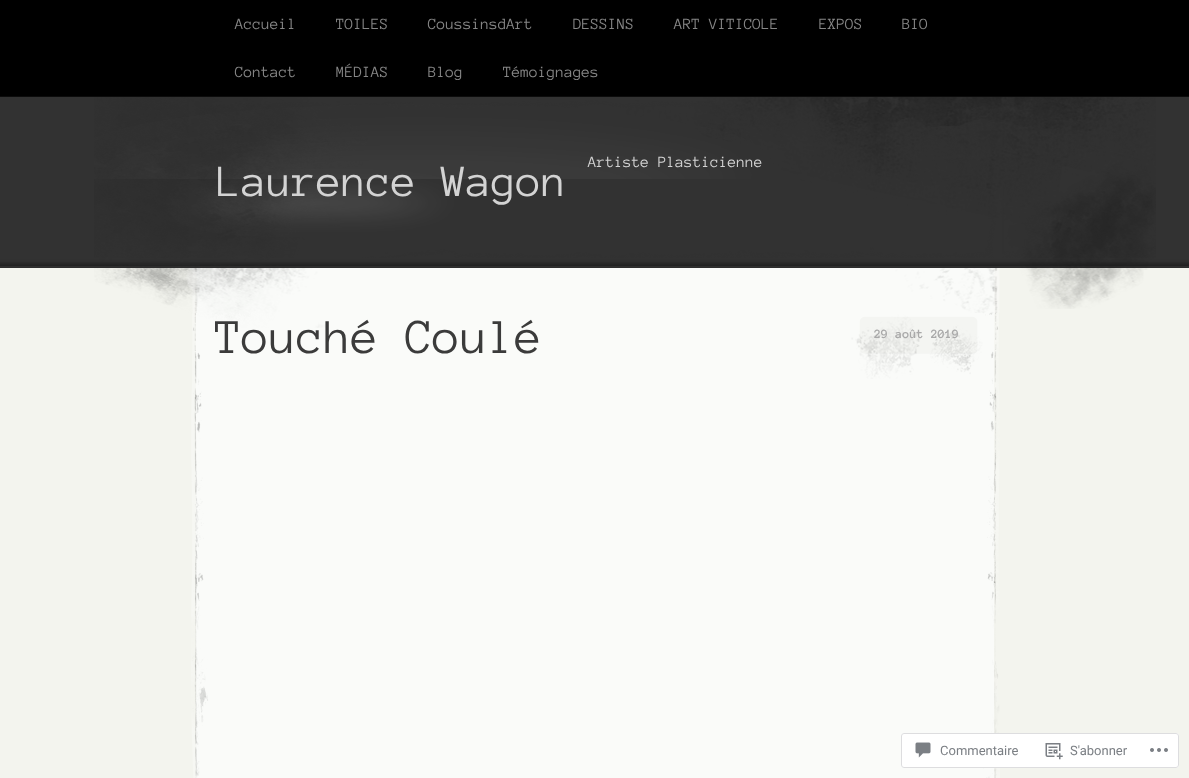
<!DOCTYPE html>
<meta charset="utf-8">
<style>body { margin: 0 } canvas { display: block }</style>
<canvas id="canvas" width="1189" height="778"></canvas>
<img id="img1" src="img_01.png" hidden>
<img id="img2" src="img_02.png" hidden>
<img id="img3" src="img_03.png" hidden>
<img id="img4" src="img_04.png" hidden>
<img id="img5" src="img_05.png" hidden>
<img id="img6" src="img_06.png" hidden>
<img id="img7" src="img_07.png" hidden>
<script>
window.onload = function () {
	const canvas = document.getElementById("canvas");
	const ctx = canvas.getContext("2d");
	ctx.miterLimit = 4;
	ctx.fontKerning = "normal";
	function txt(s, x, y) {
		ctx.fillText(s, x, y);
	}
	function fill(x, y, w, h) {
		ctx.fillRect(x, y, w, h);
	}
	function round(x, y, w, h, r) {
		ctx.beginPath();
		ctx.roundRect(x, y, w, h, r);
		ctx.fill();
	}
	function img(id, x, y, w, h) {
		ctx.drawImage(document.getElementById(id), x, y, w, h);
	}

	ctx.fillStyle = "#F3F4EE";
	fill(0, 0, 1189, 778);
	ctx.fillStyle = "#000000";
	fill(0, 0, 1189, 96);
	ctx.fillStyle = "#0C0C0C";
	fill(0, 96, 1189, 1);
	img("img1", 0, 97, 1189, 171);
	img("img2", 94, 97, 1062, 216);
	img("img3", 191, 313, 809, 465);
	img("img4", 851, 313, 132, 66);
	ctx.fillStyle = "rgba(255, 255, 255, 0.98)";
	round(901, 733, 278, 35, 3);
	ctx.beginPath();
	ctx.roundRect(901.5, 733.5, 277, 34, 2.5);
	ctx.strokeStyle = "rgba(220, 220, 222, 0.98)";
	ctx.stroke();
	img("img5", 915, 742, 16, 16);
	img("img6", 1045, 743, 18, 17);
	img("img7", 1150, 748, 18, 4);
	ctx.font = "16px Anonymous Pro";
	ctx.fillStyle = "#868686";
	txt("Accueil", 235, 29);
	txt("TOILES", 336, 29);
	txt("CoussinsdArt", 428, 29);
	txt("DESSINS", 573, 29);
	txt("ART VITICOLE", 674, 29);
	txt("EXPOS", 819, 29);
	txt("BIO", 902, 29);
	txt("Contact", 235, 77);
	txt("MÉDIAS", 336, 77);
	txt("Blog", 428, 77);
	txt("Témoignages", 503, 77);
	ctx.fillStyle = "#D3D3D3";
	txt("Artiste Plasticienne", 588, 167);
	ctx.font = "45.75px Anonymous Pro";
	txt("Laurence Wagon", 217, 196);
	ctx.font = "50px Anonymous Pro";
	ctx.fillStyle = "#3B3B3B";
	txt("Touché Coulé", 215, 353);
	ctx.font = "bold 13px Anonymous Pro";
	ctx.fillStyle = "#A9A9A9";
	txt("29 août 2019", 874, 338);
	ctx.font = "13px Roboto";
	ctx.fillStyle = "#7B7F84";
	txt("Commentaire", 940, 755);
	txt("S'abonner", 1070, 755);
};
</script>
